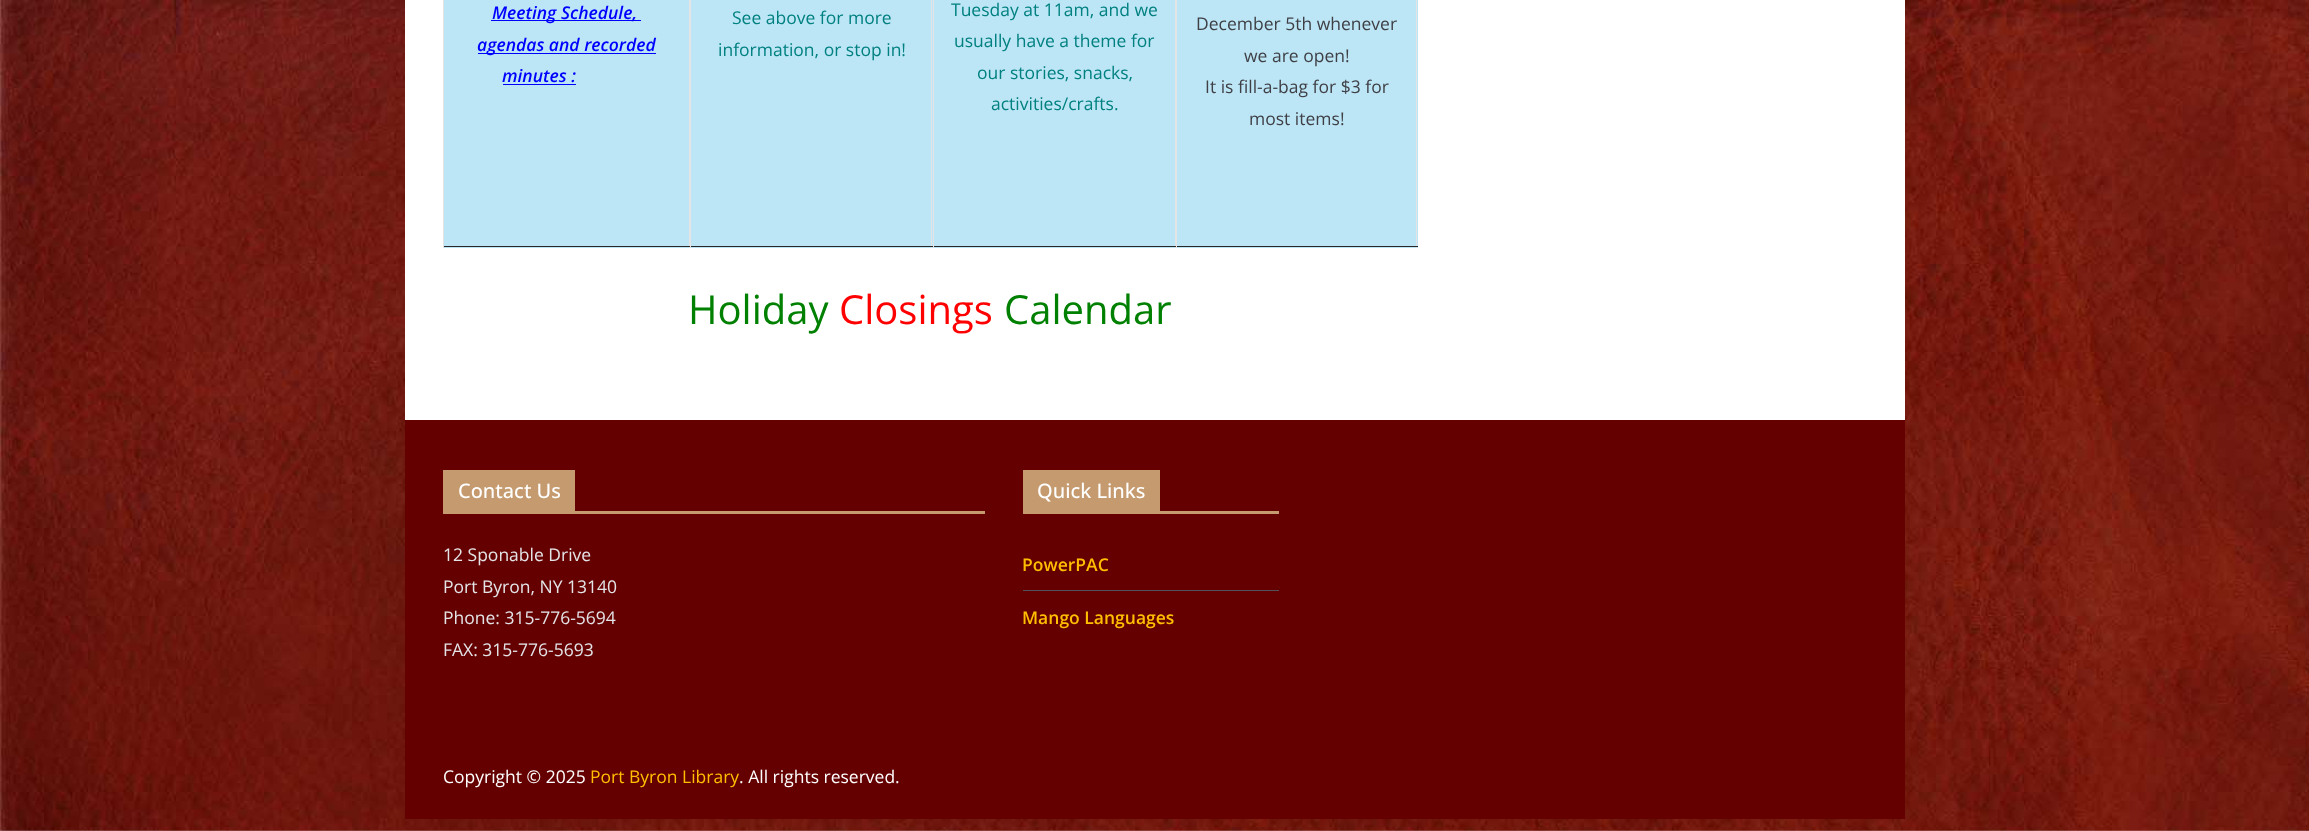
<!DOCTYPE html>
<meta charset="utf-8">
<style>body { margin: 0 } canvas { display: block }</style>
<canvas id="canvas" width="2309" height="831"></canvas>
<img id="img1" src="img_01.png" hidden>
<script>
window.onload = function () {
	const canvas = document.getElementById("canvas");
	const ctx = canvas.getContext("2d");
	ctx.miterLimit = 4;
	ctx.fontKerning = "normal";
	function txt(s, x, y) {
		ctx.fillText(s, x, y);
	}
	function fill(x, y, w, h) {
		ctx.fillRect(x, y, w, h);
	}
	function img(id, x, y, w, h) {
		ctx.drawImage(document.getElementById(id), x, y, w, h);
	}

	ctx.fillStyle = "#FFFFFF";
	fill(0, 0, 2309, 831);
	img("img1", 0, 0, 2309, 831);
	fill(405, 0, 1500, 420);
	ctx.fillStyle = "#BCE6F5";
	fill(444, 0, 974, 248);
	ctx.fillStyle = "#E4E4E7";
	fill(689, 0, 1, 248);
	ctx.fillStyle = "#27272A";
	fill(443, 246, 247, 1);
	ctx.fillStyle = "#E4E4E7";
	fill(443, 0, 1, 248);
	ctx.fillStyle = "#0000FF";
	fill(491, 20, 150, 1);
	fill(478, 53, 178, 1);
	fill(503, 84, 73, 1);
	ctx.fillStyle = "#E4E4E7";
	fill(931, 0, 1, 248);
	ctx.fillStyle = "#27272A";
	fill(690, 246, 243, 1);
	ctx.fillStyle = "#E4E4E7";
	fill(690, 0, 1, 248);
	fill(1175, 0, 1, 248);
	ctx.fillStyle = "#27272A";
	fill(933, 246, 243, 1);
	ctx.fillStyle = "#E4E4E7";
	fill(933, 0, 1, 248);
	fill(1416, 0, 1, 248);
	ctx.fillStyle = "#27272A";
	fill(1176, 246, 242, 1);
	ctx.fillStyle = "#E4E4E7";
	fill(1176, 0, 1, 248);
	ctx.fillStyle = "#650000";
	fill(405, 420, 1500, 399);
	ctx.fillStyle = "#C59A6F";
	fill(443, 511, 542, 3);
	fill(443, 470, 132, 41);
	fill(1023, 511, 256, 3);
	fill(1023, 470, 137, 41);
	ctx.fillStyle = "#52525B";
	fill(1023, 590, 256, 1);
	ctx.font = "italic 600 17.5px Open Sans";
	ctx.fillStyle = "#0000FF";
	txt("Meeting Schedule,", 492, 19);
	txt("agendas and recorded", 477, 51);
	txt("minutes :", 502, 82);
	ctx.font = "17.5px Open Sans";
	ctx.fillStyle = "#008080";
	txt("See above for more", 732, 24);
	txt("information, or stop in!", 718, 56);
	txt("Tuesday at 11am, and we", 951, 16);
	txt("usually have a theme for", 954, 47);
	txt("our stories, snacks,", 977, 79);
	txt("activities/crafts.", 991, 110);
	ctx.fillStyle = "#3F3F46";
	txt("December 5th whenever", 1196, 30);
	txt("we are open!", 1244, 62);
	txt("It is fill-a-bag for $3 for", 1205, 93);
	txt("most items!", 1249, 125);
	ctx.font = "40px Open Sans";
	ctx.fillStyle = "#008000";
	txt("Holiday", 688, 324);
	ctx.fillStyle = "#FF0000";
	txt("Closings", 839, 324);
	ctx.fillStyle = "#008000";
	txt("Calendar", 1004, 324);
	ctx.font = "500 20px Open Sans";
	ctx.fillStyle = "#FFFFFF";
	txt("Contact Us", 458, 498);
	ctx.font = "17.5px Open Sans";
	ctx.fillStyle = "#E4E4E7";
	txt("12 Sponable Drive", 443, 561);
	txt("Port Byron, NY 13140", 443, 593);
	txt("Phone: 315-776-5694", 443, 624);
	txt("FAX: 315-776-5693", 443, 656);
	ctx.font = "500 20px Open Sans";
	ctx.fillStyle = "#FFFFFF";
	txt("Quick Links", 1037, 498);
	ctx.font = "600 17.5px Open Sans";
	ctx.fillStyle = "#FFBF00";
	txt("PowerPAC", 1022, 571);
	txt("Mango Languages", 1022, 624);
	ctx.font = "17.5px Open Sans";
	ctx.fillStyle = "#FFFFFF";
	txt("Copyright © 2025", 443, 783);
	ctx.fillStyle = "#FFBF00";
	txt("Port Byron Library", 590, 783);
	ctx.fillStyle = "#FFFFFF";
	txt(". All rights reserved.", 739, 783);
};
</script>
